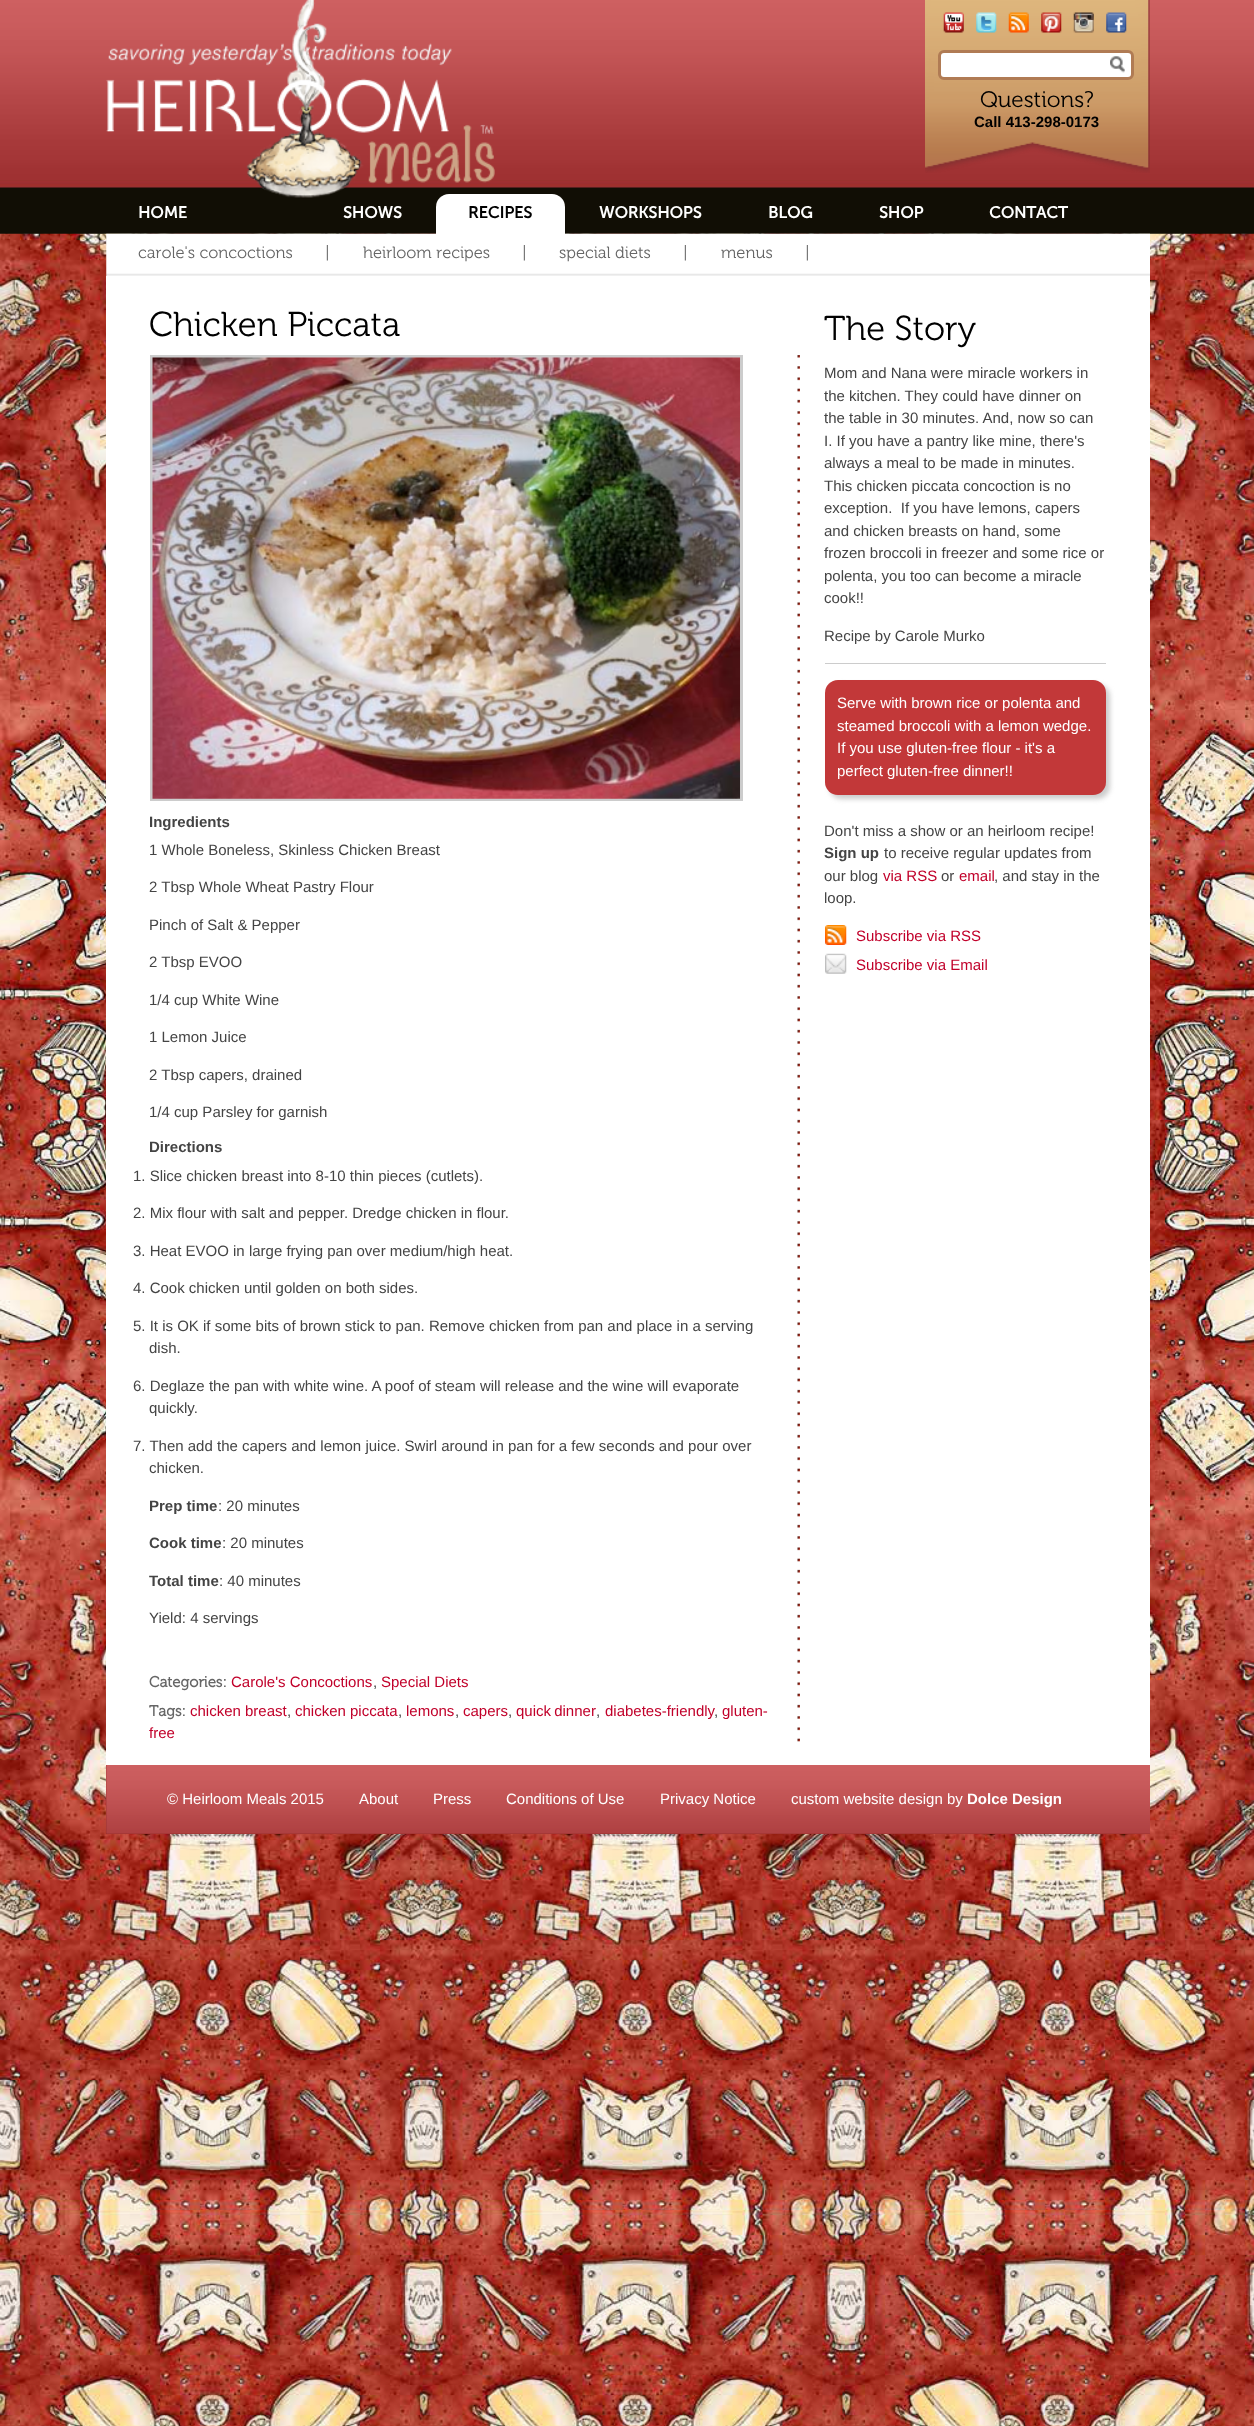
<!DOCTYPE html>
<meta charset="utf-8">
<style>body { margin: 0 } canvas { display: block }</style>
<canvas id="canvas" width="1254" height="2426"></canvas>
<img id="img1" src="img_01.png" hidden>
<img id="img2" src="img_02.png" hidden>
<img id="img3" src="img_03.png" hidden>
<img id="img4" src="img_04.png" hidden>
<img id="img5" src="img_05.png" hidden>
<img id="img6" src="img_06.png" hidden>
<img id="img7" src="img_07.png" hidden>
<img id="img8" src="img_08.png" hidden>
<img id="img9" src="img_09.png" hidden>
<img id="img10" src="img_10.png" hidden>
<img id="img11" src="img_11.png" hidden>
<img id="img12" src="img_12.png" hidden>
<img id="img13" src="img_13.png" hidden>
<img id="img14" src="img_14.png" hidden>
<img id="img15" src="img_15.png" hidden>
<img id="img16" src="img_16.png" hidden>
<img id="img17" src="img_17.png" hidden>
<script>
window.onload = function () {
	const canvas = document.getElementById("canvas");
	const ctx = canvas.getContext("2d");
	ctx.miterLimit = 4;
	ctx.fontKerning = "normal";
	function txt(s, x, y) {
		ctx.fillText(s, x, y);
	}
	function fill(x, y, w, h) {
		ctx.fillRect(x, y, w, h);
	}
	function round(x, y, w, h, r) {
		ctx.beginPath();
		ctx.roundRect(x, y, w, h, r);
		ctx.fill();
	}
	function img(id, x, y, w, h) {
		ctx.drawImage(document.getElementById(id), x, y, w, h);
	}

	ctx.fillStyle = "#FFFFFF";
	fill(0, 0, 1254, 2426);
	img("img1", 0, 233, 1254, 2193);
	img("img2", 0, 0, 1254, 234);
	img("img3", 106, 0, 389, 198);
	img("img4", 925, 0, 225, 173);
	img("img5", 943, 12, 21, 21);
	img("img6", 976, 12, 21, 21);
	img("img7", 1008, 12, 21, 21);
	img("img8", 1041, 12, 21, 21);
	img("img9", 1073, 12, 21, 21);
	img("img10", 1106, 12, 21, 21);
	ctx.beginPath();
	ctx.roundRect(939.5, 51.5, 193, 27, 4.5);
	ctx.fill();
	ctx.strokeStyle = "#B07B54";
	ctx.lineWidth = 3;
	ctx.stroke();
	img("img11", 1110, 56, 15, 17);
	img("img12", 106, 233, 1044, 43);
	ctx.beginPath();
	ctx.roundRect(436, 194, 129, 41, [13, 13, 0, 0]);
	ctx.fill();
	fill(106, 276, 1044, 1489);
	img("img13", 797, 355, 3, 1387);
	ctx.strokeStyle = "#CCCCCC";
	ctx.strokeRect(151.5, 356.5, 590, 443);
	img("img14", 152, 357, 588, 442);
	ctx.fillStyle = "#CCCCCC";
	fill(825, 663, 281, 1);
	ctx.filter = "blur(2.5px)";
	ctx.beginPath();
	ctx.roundRect(829, 684, 281, 115, 13);
	ctx.fill();
	ctx.filter = "none";
	ctx.fillStyle = "#C23839";
	round(825, 680, 281, 115, 13);
	img("img15", 825, 925, 22, 20);
	img("img16", 825, 953, 22, 21);
	ctx.fillStyle = "#8B221B";
	fill(106, 1765, 1044, 69);
	img("img17", 106, 1765, 1044, 69);
	ctx.font = "300 22.5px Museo";
	ctx.fillStyle = "#000000";
	txt("Questions?", 980, 107);
	ctx.font = "bold 15px Liberation Sans";
	txt("Call 413-298-0173", 974, 127);
	ctx.font = "bold 16.25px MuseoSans";
	ctx.fillStyle = "#FFFFFF";
	txt("HOME", 138, 218);
	txt("SHOWS", 343, 218);
	ctx.fillStyle = "#000000";
	txt("RECIPES", 468, 218);
	ctx.fillStyle = "#FFFFFF";
	txt("WORKSHOPS", 599, 218);
	txt("BLOG", 768, 218);
	txt("SHOP", 879, 218);
	txt("CONTACT", 989, 218);
	ctx.font = "300 16.5px Museo";
	ctx.fillStyle = "#666666";
	txt("carole's concoctions", 138, 258);
	txt("|", 325, 258);
	txt("heirloom recipes", 363, 258);
	txt("|", 522, 258);
	txt("special diets", 559, 258);
	txt("|", 683, 258);
	txt("menus", 721, 258);
	txt("|", 805, 258);
	ctx.font = "300 34.5px Museo";
	ctx.fillStyle = "#000000";
	txt("Chicken Piccata", 149, 336);
	ctx.font = "bold 15px Liberation Sans";
	ctx.fillStyle = "#444444";
	txt("Ingredients", 149, 827);
	ctx.font = "15px Liberation Sans";
	txt("1 Whole Boneless, Skinless Chicken Breast", 149, 855);
	txt("2 Tbsp Whole Wheat Pastry Flour", 149, 892);
	txt("Pinch of Salt & Pepper", 149, 930);
	txt("2 Tbsp EVOO", 149, 967);
	txt("1/4 cup White Wine", 149, 1005);
	txt("1 Lemon Juice", 149, 1042);
	txt("2 Tbsp capers, drained", 149, 1080);
	txt("1/4 cup Parsley for garnish", 149, 1117);
	ctx.font = "bold 15px Liberation Sans";
	txt("Directions", 149, 1152);
	ctx.font = "15px Liberation Sans";
	txt("1. Slice chicken breast into 8-10 thin pieces (cutlets).", 133, 1181);
	txt("2. Mix flour with salt and pepper. Dredge chicken in flour.", 133, 1218);
	txt("3. Heat EVOO in large frying pan over medium/high heat.", 133, 1256);
	txt("4. Cook chicken until golden on both sides.", 133, 1293);
	txt("5. It is OK if some bits of brown stick to pan. Remove chicken from pan and place in a serving", 133, 1331);
	txt("dish.", 149, 1353);
	txt("6. Deglaze the pan with white wine. A poof of steam will release and the wine will evaporate", 133, 1391);
	txt("quickly.", 149, 1413);
	txt("7. Then add the capers and lemon juice. Swirl around in pan for a few seconds and pour over", 133, 1451);
	txt("chicken.", 149, 1473);
	ctx.font = "bold 15px Liberation Sans";
	txt("Prep time", 149, 1511);
	ctx.font = "15px Liberation Sans";
	txt(": 20 minutes", 218, 1511);
	ctx.font = "bold 15px Liberation Sans";
	txt("Cook time", 149, 1548);
	ctx.font = "15px Liberation Sans";
	txt(": 20 minutes", 222, 1548);
	ctx.font = "bold 15px Liberation Sans";
	txt("Total time", 149, 1586);
	ctx.font = "15px Liberation Sans";
	txt(": 40 minutes", 219, 1586);
	txt("Yield: 4 servings", 149, 1623);
	ctx.font = "bold 15px Museo";
	ctx.fillStyle = "#666666";
	txt("Categories:", 149, 1687);
	ctx.font = "15px Liberation Sans";
	ctx.fillStyle = "#C1002A";
	txt("Carole's Concoctions", 231, 1687);
	ctx.fillStyle = "#444444";
	txt(",", 373, 1687);
	ctx.fillStyle = "#C1002A";
	txt("Special Diets", 381, 1687);
	ctx.font = "bold 15px Museo";
	ctx.fillStyle = "#666666";
	txt("Tags:", 149, 1716);
	ctx.font = "15px Liberation Sans";
	ctx.fillStyle = "#C1002A";
	txt("chicken breast", 190, 1716);
	ctx.fillStyle = "#444444";
	txt(",", 287, 1716);
	ctx.fillStyle = "#C1002A";
	txt("chicken piccata", 295, 1716);
	ctx.fillStyle = "#444444";
	txt(",", 398, 1716);
	ctx.fillStyle = "#C1002A";
	txt("lemons", 406, 1716);
	ctx.fillStyle = "#444444";
	txt(",", 455, 1716);
	ctx.fillStyle = "#C1002A";
	txt("capers", 463, 1716);
	ctx.fillStyle = "#444444";
	txt(",", 508, 1716);
	ctx.wordSpacing = "-1px";
	ctx.fillStyle = "#C1002A";
	txt("quick dinner", 516, 1716);
	ctx.wordSpacing = "0px";
	ctx.fillStyle = "#444444";
	txt(",", 596, 1716);
	ctx.fillStyle = "#C1002A";
	txt("diabetes-friendly", 605, 1716);
	ctx.fillStyle = "#444444";
	txt(",", 714, 1716);
	ctx.fillStyle = "#C1002A";
	txt("gluten-", 722, 1716);
	txt("free", 149, 1738);
	ctx.font = "300 34.5px Museo";
	ctx.fillStyle = "#000000";
	txt("The Story", 824, 340);
	ctx.font = "15px Liberation Sans";
	ctx.fillStyle = "#444444";
	txt("Mom and Nana were miracle workers in", 824, 378);
	txt("the kitchen. They could have dinner on", 824, 401);
	txt("the table in 30 minutes. And, now so can", 824, 423);
	txt("I. If you have a pantry like mine, there's", 824, 446);
	txt("always a meal to be made in minutes.", 824, 468);
	txt("This chicken piccata concoction is no", 824, 491);
	txt("exception.  If you have lemons, capers", 824, 513);
	txt("and chicken breasts on hand, some", 824, 536);
	txt("frozen broccoli in freezer and some rice or", 824, 558);
	txt("polenta, you too can become a miracle", 824, 581);
	txt("cook!!", 824, 603);
	txt("Recipe by Carole Murko", 824, 641);
	ctx.fillStyle = "#FFFFFF";
	txt("Serve with brown rice or polenta and", 837, 708);
	txt("steamed broccoli with a lemon wedge.", 837, 731);
	txt("If you use gluten-free flour - it's a", 837, 753);
	txt("perfect gluten-free dinner!!", 837, 776);
	ctx.fillStyle = "#444444";
	txt("Don't miss a show or an heirloom recipe!", 824, 836);
	ctx.font = "bold 15px Liberation Sans";
	txt("Sign up", 824, 858);
	ctx.font = "15px Liberation Sans";
	txt("to receive regular updates from", 884, 858);
	txt("our blog", 824, 881);
	ctx.fillStyle = "#C1002A";
	txt("via RSS", 883, 881);
	ctx.fillStyle = "#444444";
	txt("or", 941, 881);
	ctx.fillStyle = "#C1002A";
	txt("email", 959, 881);
	ctx.fillStyle = "#444444";
	txt(", and stay in the", 994, 881);
	txt("loop.", 824, 903);
	ctx.fillStyle = "#C1002A";
	txt("Subscribe via RSS", 856, 941);
	txt("Subscribe via Email", 856, 970);
	ctx.fillStyle = "#FFFFFF";
	txt("© Heirloom Meals 2015", 167, 1804);
	txt("About", 359, 1804);
	txt("Press", 433, 1804);
	txt("Conditions of Use", 506, 1804);
	txt("Privacy Notice", 660, 1804);
	txt("custom website design by", 791, 1804);
	ctx.font = "bold 15px Liberation Sans";
	txt("Dolce Design", 967, 1804);
};
</script>
